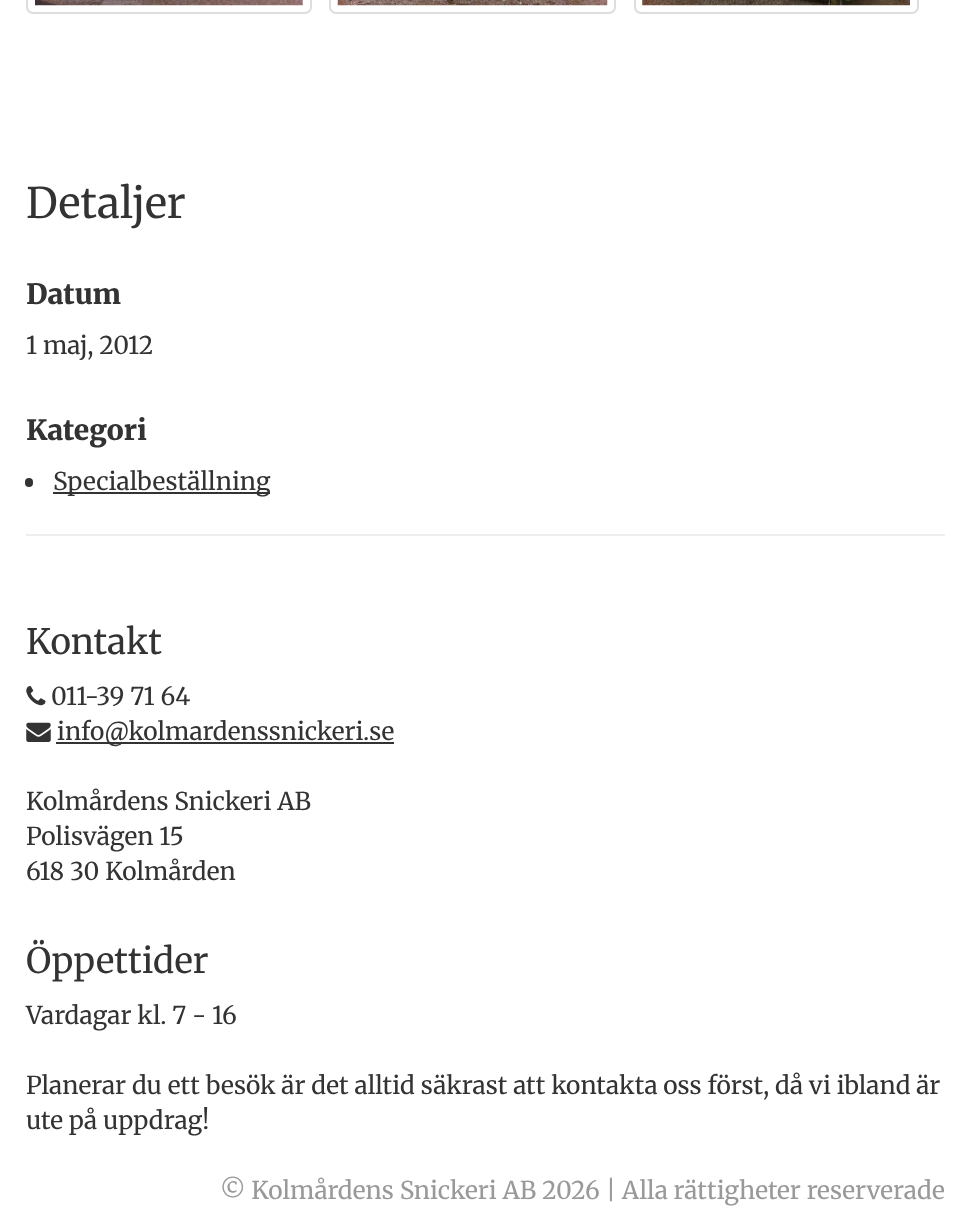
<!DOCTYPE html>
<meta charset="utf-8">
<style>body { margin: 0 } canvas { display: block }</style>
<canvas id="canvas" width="971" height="1219"></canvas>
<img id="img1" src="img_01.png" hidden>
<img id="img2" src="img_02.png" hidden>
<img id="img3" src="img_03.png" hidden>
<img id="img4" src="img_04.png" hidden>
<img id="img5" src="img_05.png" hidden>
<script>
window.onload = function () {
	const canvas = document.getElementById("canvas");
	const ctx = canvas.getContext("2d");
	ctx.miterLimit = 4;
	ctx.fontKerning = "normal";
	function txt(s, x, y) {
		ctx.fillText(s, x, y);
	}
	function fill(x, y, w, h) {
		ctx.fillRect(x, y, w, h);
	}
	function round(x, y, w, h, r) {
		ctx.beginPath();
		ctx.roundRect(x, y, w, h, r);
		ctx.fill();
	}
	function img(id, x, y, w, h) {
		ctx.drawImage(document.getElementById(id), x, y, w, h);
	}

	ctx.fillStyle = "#FFFFFF";
	fill(0, 0, 971, 1219);
	ctx.beginPath();
	ctx.roundRect(27, -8, 284, 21, 6);
	ctx.strokeStyle = "#DDDDDD";
	ctx.lineWidth = 2;
	ctx.stroke();
	img("img1", 35, 0, 268, 6);
	ctx.beginPath();
	ctx.roundRect(330, -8, 285, 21, 6);
	ctx.stroke();
	img("img2", 337, 0, 271, 6);
	ctx.beginPath();
	ctx.roundRect(635, -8, 283, 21, 6);
	ctx.stroke();
	img("img3", 642, 0, 268, 6);
	ctx.fillStyle = "#333333";
	round(25, 478, 8, 9, 4);
	fill(53, 492, 217, 2);
	ctx.fillStyle = "#EEEEEE";
	fill(26, 534, 919, 2);
	img("img4", 26, 686, 20, 20);
	img("img5", 26, 722, 25, 20);
	ctx.fillStyle = "#333333";
	fill(56, 742, 338, 2);
	ctx.font = "42px Merriweather";
	txt("Detaljer", 26, 218);
	ctx.font = "900 28px Merriweather";
	txt("Datum", 26, 304);
	ctx.font = "24.5px Merriweather";
	txt("1 maj, 2012", 26, 354);
	ctx.font = "900 28px Merriweather";
	txt("Kategori", 26, 440);
	ctx.font = "24.5px Merriweather";
	txt("Specialbeställning", 53, 490);
	ctx.font = "35px Merriweather";
	txt("Kontakt", 26, 654);
	ctx.font = "24.5px Merriweather";
	txt("011-39 71 64", 51, 705);
	txt("info@kolmardenssnickeri.se", 57, 740);
	txt("Kolmårdens Snickeri AB", 26, 810);
	txt("Polisvägen 15", 26, 845);
	txt("618 30 Kolmården", 26, 880);
	ctx.font = "35px Merriweather";
	txt("Öppettider", 26, 973);
	ctx.font = "24.5px Merriweather";
	txt("Vardagar kl. 7 - 16", 26, 1024);
	txt("Planerar du ett besök är det alltid säkrast att kontakta oss först, då vi ibland är", 26, 1094);
	txt("ute på uppdrag!", 26, 1129);
	ctx.fillStyle = "#999999";
	txt("© Kolmårdens Snickeri AB 2026 | Alla rättigheter reserverade", 220, 1199);
};
</script>
